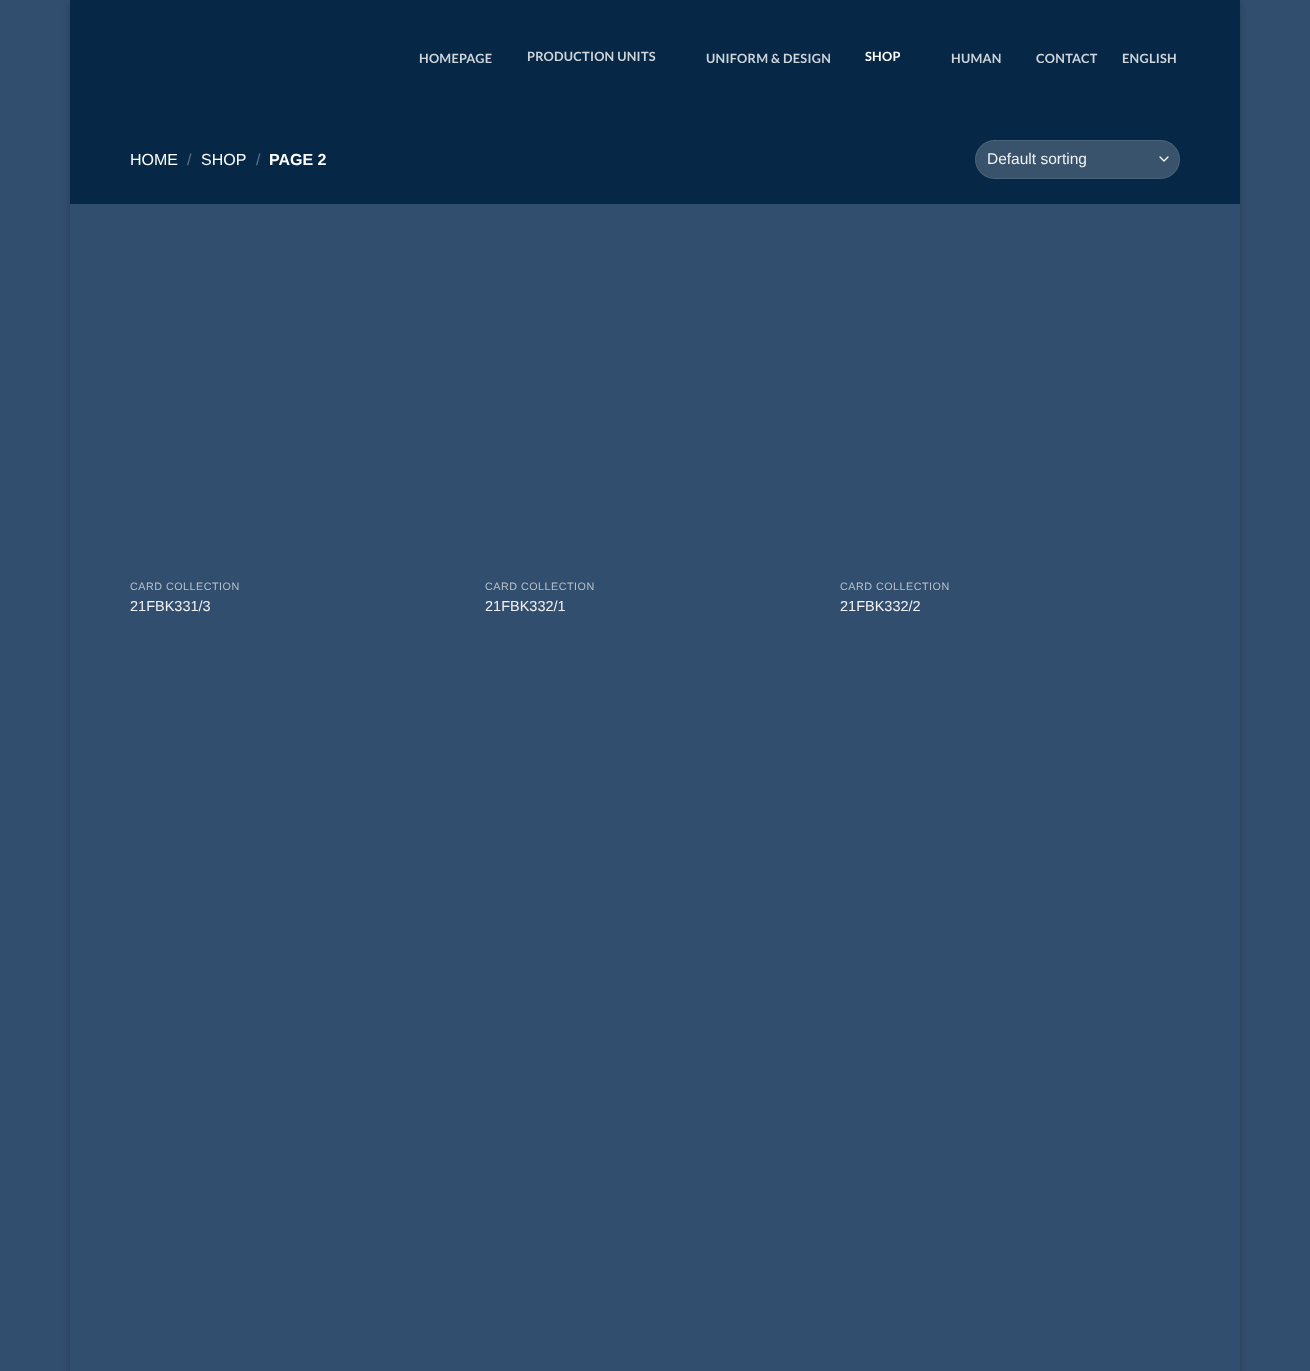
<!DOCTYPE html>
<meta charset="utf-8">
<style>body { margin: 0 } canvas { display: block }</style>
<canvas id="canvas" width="1310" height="1371"></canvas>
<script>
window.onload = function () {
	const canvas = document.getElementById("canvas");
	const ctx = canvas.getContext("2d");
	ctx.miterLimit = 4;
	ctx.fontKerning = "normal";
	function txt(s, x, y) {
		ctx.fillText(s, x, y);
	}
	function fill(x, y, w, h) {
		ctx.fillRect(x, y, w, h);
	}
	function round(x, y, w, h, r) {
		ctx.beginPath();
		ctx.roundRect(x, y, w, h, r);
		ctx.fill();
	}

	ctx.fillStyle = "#324E6E";
	fill(0, 0, 1310, 1371);
	ctx.fillStyle = "rgba(0, 0, 0, 0.23)";
	ctx.filter = "blur(3px)";
	ctx.beginPath();
	ctx.rect(70, 3, 1170, 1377);
	ctx.fill();
	ctx.filter = "none";
	ctx.fillStyle = "#062846";
	fill(70, 0, 1170, 204);
	ctx.fillStyle = "#38536B";
	round(975, 140, 205, 39, 19.5);
	ctx.beginPath();
	ctx.moveTo(1160, 157);
	ctx.lineTo(1164, 161);
	ctx.lineTo(1168, 157);
	ctx.strokeStyle = "#FFFFFF";
	ctx.lineWidth = 1.3;
	ctx.lineCap = "round";
	ctx.lineJoin = "round";
	ctx.stroke();
	ctx.beginPath();
	ctx.roundRect(975.5, 140.5, 204, 38, 19);
	ctx.strokeStyle = "rgba(255, 255, 255, 0.09)";
	ctx.lineWidth = 1;
	ctx.lineJoin = "miter";
	ctx.stroke();
	ctx.fillStyle = "#324E6E";
	fill(70, 204, 1170, 1167);
	ctx.letterSpacing = "0.25px";
	ctx.font = "bold 12.75px Lato";
	ctx.fillStyle = "#CDD4DA";
	txt("HOMEPAGE", 419, 63);
	txt("PRODUCTION UNITS", 527, 61);
	txt("UNIFORM & DESIGN", 706, 63);
	ctx.fillStyle = "#FFFFFF";
	txt("SHOP", 865, 61);
	ctx.fillStyle = "#CDD4DA";
	txt("HUMAN", 951, 63);
	txt("CONTACT", 1036, 63);
	txt("ENGLISH", 1122, 63);
	ctx.letterSpacing = "0px";
	ctx.font = "16px Liberation Sans";
	ctx.fillStyle = "#FFFFFF";
	txt("HOME", 130, 165);
	ctx.fillStyle = "#5D7387";
	txt("/", 187, 165);
	ctx.fillStyle = "#FFFFFF";
	txt("SHOP", 201, 165);
	ctx.fillStyle = "#5D7387";
	txt("/", 256, 165);
	ctx.font = "bold 16px Liberation Sans";
	ctx.fillStyle = "#FFFFFF";
	txt("PAGE 2", 269, 165);
	ctx.font = "15.5px Liberation Sans";
	ctx.fillStyle = "#F1F1F1";
	txt("Default sorting", 987, 164);
	ctx.letterSpacing = "0.5px";
	ctx.font = "10.75px Liberation Sans";
	ctx.fillStyle = "#B8C0CA";
	txt("CARD COLLECTION", 130, 590);
	ctx.letterSpacing = "0px";
	ctx.font = "14.5px Liberation Sans";
	ctx.fillStyle = "#F1F1F1";
	txt("21FBK331/3", 130, 611);
	ctx.letterSpacing = "0.5px";
	ctx.font = "10.75px Liberation Sans";
	ctx.fillStyle = "#B8C0CA";
	txt("CARD COLLECTION", 485, 590);
	ctx.letterSpacing = "0px";
	ctx.font = "14.5px Liberation Sans";
	ctx.fillStyle = "#F1F1F1";
	txt("21FBK332/1", 485, 611);
	ctx.letterSpacing = "0.5px";
	ctx.font = "10.75px Liberation Sans";
	ctx.fillStyle = "#B8C0CA";
	txt("CARD COLLECTION", 840, 590);
	ctx.letterSpacing = "0px";
	ctx.font = "14.5px Liberation Sans";
	ctx.fillStyle = "#F1F1F1";
	txt("21FBK332/2", 840, 611);
};
</script>
